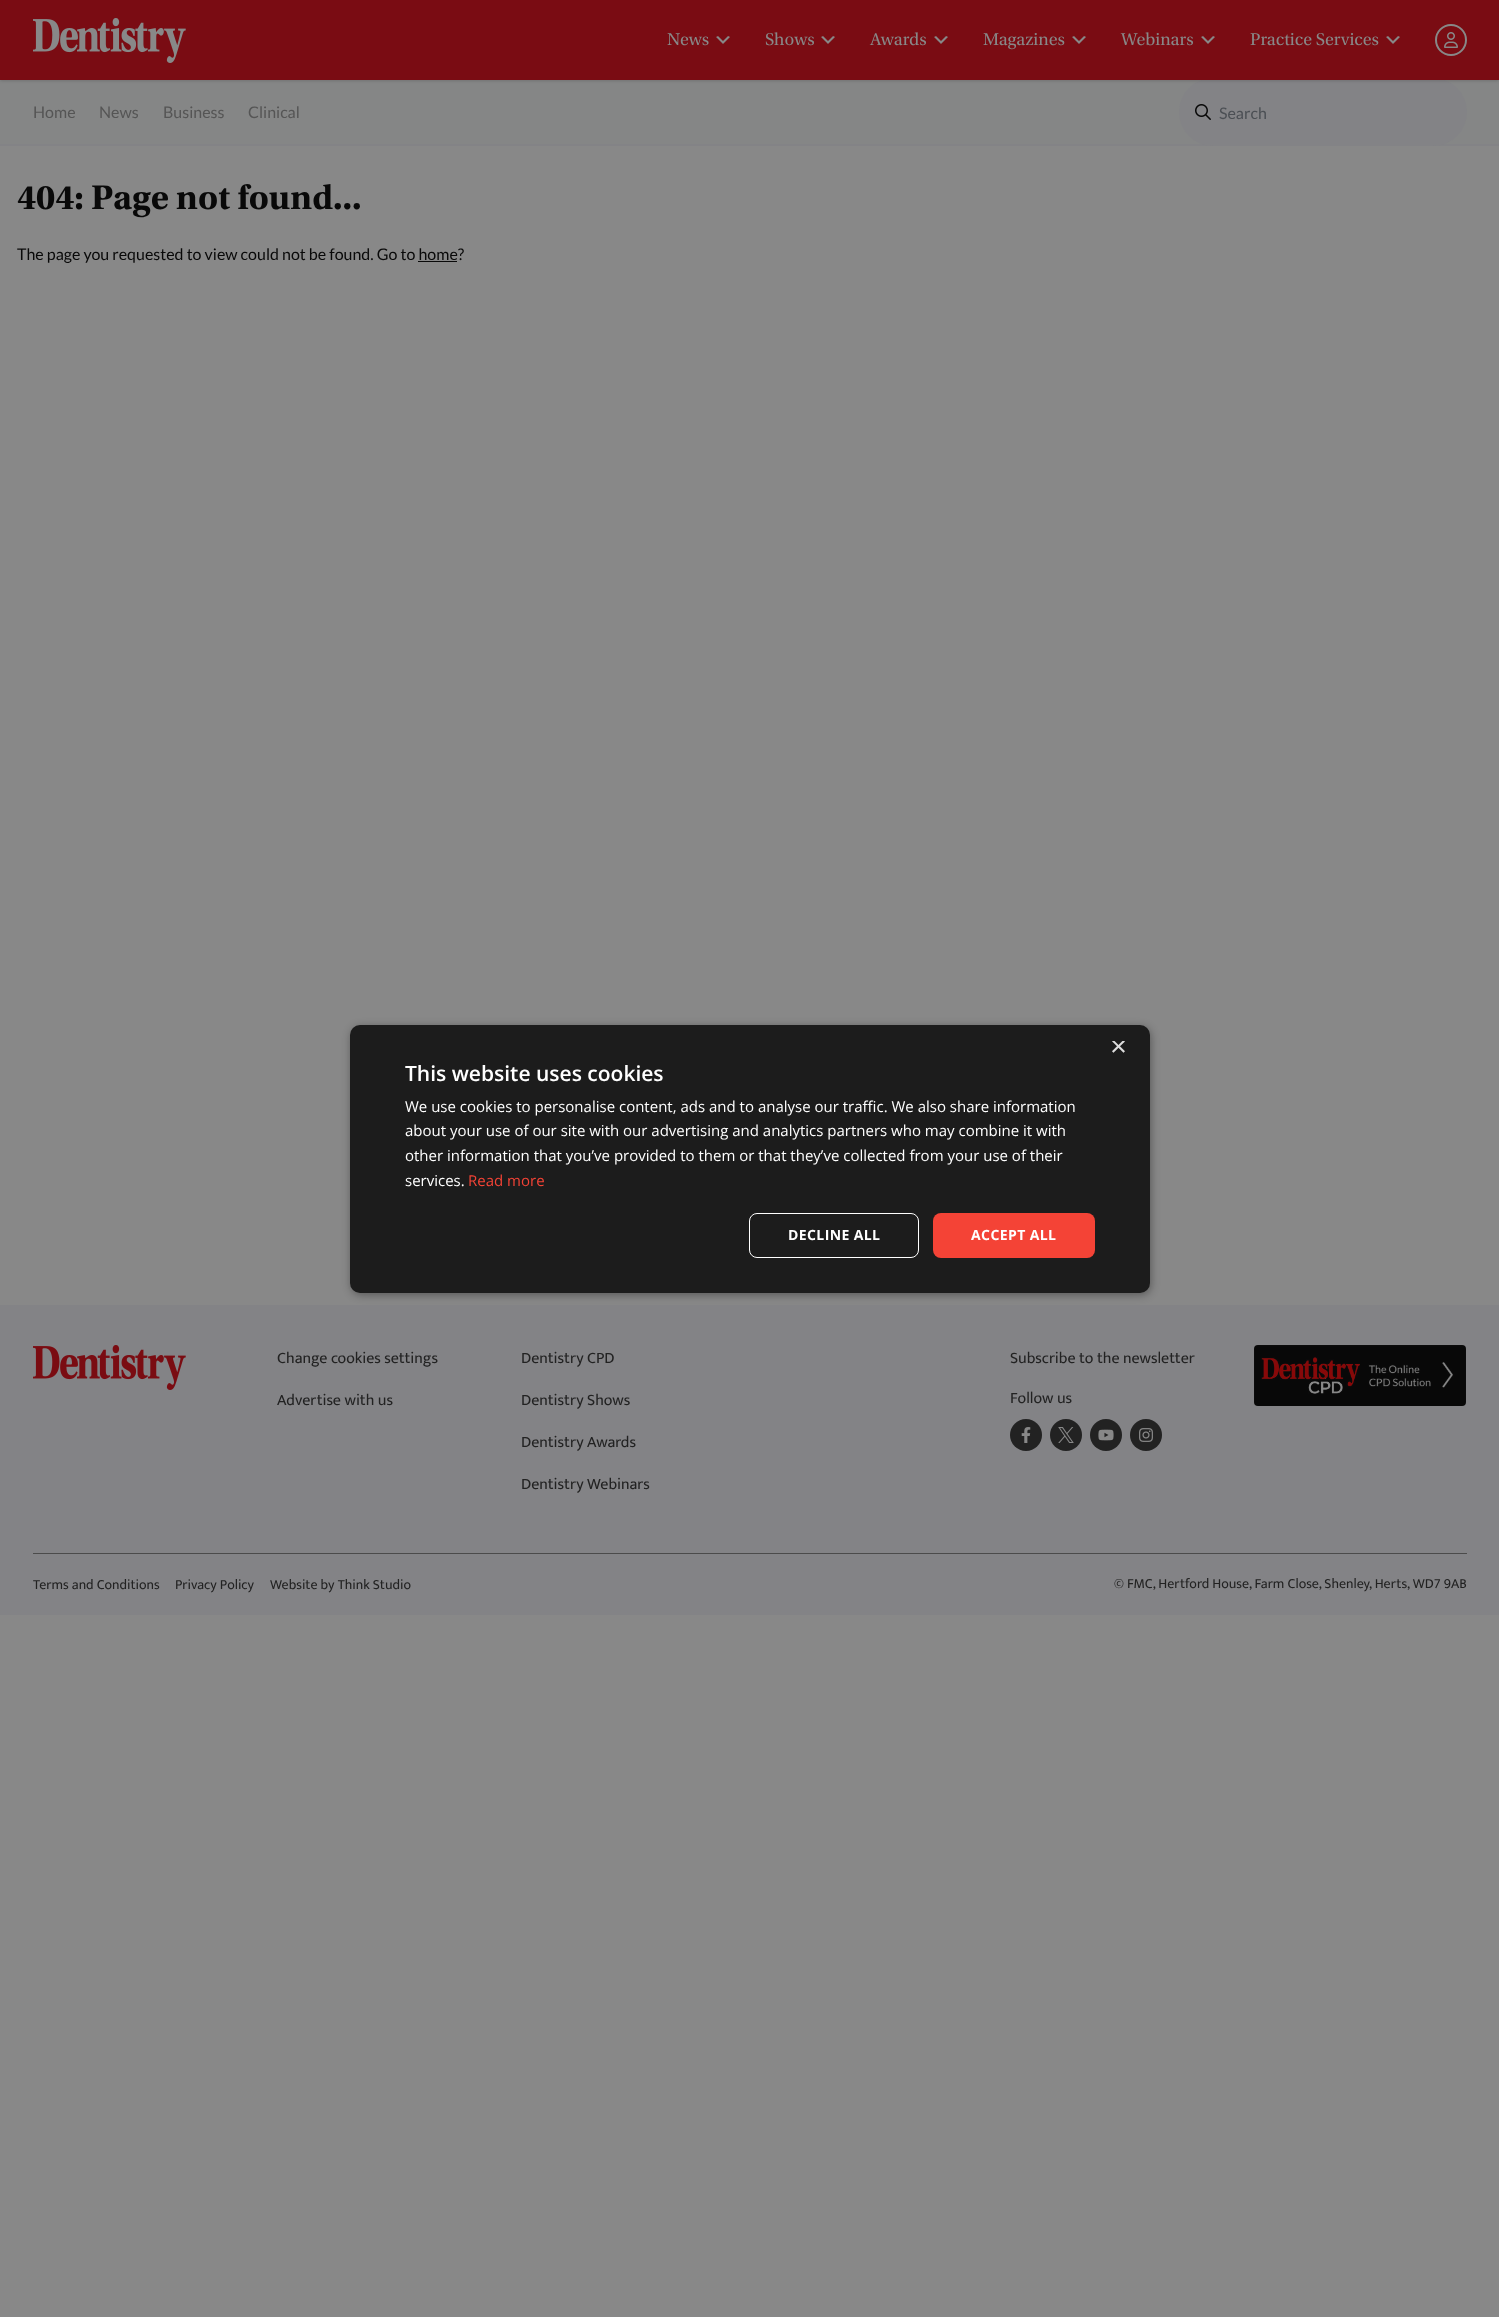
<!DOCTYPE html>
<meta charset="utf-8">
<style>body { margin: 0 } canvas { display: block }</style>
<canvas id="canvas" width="1499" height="2317"></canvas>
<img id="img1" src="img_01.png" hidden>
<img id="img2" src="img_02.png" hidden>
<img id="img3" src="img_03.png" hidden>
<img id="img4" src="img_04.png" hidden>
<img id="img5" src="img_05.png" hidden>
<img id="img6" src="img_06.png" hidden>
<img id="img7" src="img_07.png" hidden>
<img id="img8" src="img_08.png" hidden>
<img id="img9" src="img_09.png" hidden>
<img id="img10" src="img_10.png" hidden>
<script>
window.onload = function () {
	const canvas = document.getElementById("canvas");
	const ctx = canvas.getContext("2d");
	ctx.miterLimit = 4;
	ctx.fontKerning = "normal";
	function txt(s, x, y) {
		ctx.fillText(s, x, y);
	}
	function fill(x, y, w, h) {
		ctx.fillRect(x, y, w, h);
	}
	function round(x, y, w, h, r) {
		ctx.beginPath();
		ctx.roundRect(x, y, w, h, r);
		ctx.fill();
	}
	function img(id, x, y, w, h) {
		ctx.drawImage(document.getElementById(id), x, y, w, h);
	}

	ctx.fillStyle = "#888888";
	fill(0, 0, 1499, 2317);
	ctx.fillStyle = "#858686";
	fill(0, 80, 1499, 64);
	ctx.fillStyle = "#838386";
	fill(0, 144, 1499, 2);
	round(1179, 78, 288, 68, 34);
	ctx.fillStyle = "rgba(9, 9, 9, 0.1)";
	ctx.filter = "blur(1px)";
	ctx.beginPath();
	ctx.rect(1, 2, 1497, 78);
	ctx.fill();
	ctx.filter = "none";
	ctx.filter = "blur(1.5px)";
	ctx.beginPath();
	ctx.rect(0, 1, 1499, 80);
	ctx.fill();
	ctx.filter = "none";
	ctx.fillStyle = "#7A0C13";
	fill(0, 0, 1499, 80);
	img("img1", 33, 18, 153, 45);
	img("img2", 716, 36, 14, 8);
	img("img2", 821, 36, 14, 8);
	img("img2", 934, 36, 14, 8);
	img("img2", 1072, 36, 14, 8);
	img("img2", 1201, 36, 14, 8);
	img("img2", 1386, 36, 14, 8);
	ctx.beginPath();
	ctx.arc(1451, 40, 15, 0, Math.PI * 2);
	ctx.strokeStyle = "#888888";
	ctx.lineWidth = 2;
	ctx.stroke();
	img("img3", 1444, 32, 14, 16);
	img("img4", 1195, 104, 16, 16);
	ctx.fillStyle = "#090909";
	fill(418, 261, 39, 1);
	ctx.fillStyle = "#838386";
	fill(0, 1305, 1499, 310);
	img("img5", 33, 1345, 153, 45);
	ctx.fillStyle = "#222222";
	ctx.beginPath();
	ctx.arc(1026, 1435, 16, 0, Math.PI * 2);
	ctx.fill();
	img("img6", 1021, 1427, 10, 16);
	ctx.beginPath();
	ctx.arc(1066, 1435, 16, 0, Math.PI * 2);
	ctx.fill();
	img("img7", 1058, 1427, 16, 16);
	ctx.beginPath();
	ctx.arc(1106, 1435, 16, 0, Math.PI * 2);
	ctx.fill();
	img("img8", 1098, 1429, 16, 12);
	ctx.beginPath();
	ctx.arc(1146, 1435, 16, 0, Math.PI * 2);
	ctx.fill();
	img("img9", 1139, 1428, 14, 14);
	img("img10", 1254, 1345, 212, 61);
	ctx.fillStyle = "#4B4B4B";
	fill(33, 1553, 1434, 1);
	ctx.fillStyle = "rgba(0, 0, 0, 0.35)";
	ctx.filter = "blur(4px)";
	ctx.beginPath();
	ctx.roundRect(351, 1027, 800, 268, 10);
	ctx.fill();
	ctx.filter = "none";
	ctx.fillStyle = "#1C1C1C";
	round(350, 1025, 800, 268, 10);
	ctx.beginPath();
	ctx.roundRect(749.5, 1213.5, 169, 44, 7.5);
	ctx.strokeStyle = "#FFFFFF";
	ctx.lineWidth = 1;
	ctx.stroke();
	ctx.fillStyle = "#F44336";
	round(933, 1213, 162, 45, 8);
	ctx.font = "18px Utopia";
	ctx.fillStyle = "#888888";
	txt("News", 667, 45);
	txt("Shows", 765, 45);
	txt("Awards", 870, 45);
	txt("Magazines", 983, 45);
	txt("Webinars", 1121, 45);
	txt("Practice Services", 1250, 45);
	ctx.font = "16px Lato";
	ctx.fillStyle = "#555555";
	txt("Home", 33, 118);
	txt("News", 99, 118);
	txt("Business", 163, 118);
	txt("Clinical", 248, 118);
	ctx.fillStyle = "#4B4F54";
	txt("Search", 1219, 119);
	ctx.font = "bold 36px Utopia";
	ctx.fillStyle = "#090909";
	txt("404: Page not found...", 17, 209);
	ctx.font = "16px Lato";
	txt("The page you requested to view could not be found. Go to home?", 17, 260);
	ctx.font = "16px Mukta";
	ctx.fillStyle = "#222222";
	txt("Change cookies settings", 277, 1363);
	txt("Advertise with us", 277, 1405);
	txt("Dentistry CPD", 521, 1363);
	txt("Dentistry Shows", 521, 1405);
	txt("Dentistry Awards", 521, 1447);
	txt("Dentistry Webinars", 521, 1489);
	txt("Subscribe to the newsletter", 1010, 1363);
	txt("Follow us", 1010, 1403);
	ctx.font = "14px Mukta";
	txt("Terms and Conditions", 33, 1589);
	txt("Privacy Policy", 175, 1589);
	txt("Website by Think Studio", 270, 1589);
	txt("© FMC, Hertford House, Farm Close, Shenley, Herts, WD7 9AB", 1114, 1588);
	ctx.save();
	ctx.beginPath();
	ctx.rect(1110, 1041, 15, 15);
	ctx.clip();
	ctx.font = "29px Liberation Sans";
	ctx.fillStyle = "#DDDDDD";
	txt("×", 1110, 1056);
	ctx.restore();
	ctx.font = "600 21px Open Sans";
	ctx.fillStyle = "#FFFFFF";
	txt("This website uses cookies", 405, 1081);
	ctx.font = "15px Open Sans";
	txt("We use cookies to personalise content, ads and to analyse our traffic. We also share information", 405, 1112);
	txt("about your use of our site with our advertising and analytics partners who may combine it with", 405, 1136);
	txt("other information that you’ve provided to them or that they’ve collected from your use of their", 405, 1161);
	txt("services.", 405, 1186);
	ctx.fillStyle = "#F44336";
	txt("Read more", 468, 1186);
	ctx.letterSpacing = "0.4px";
	ctx.font = "bold 14px Open Sans";
	ctx.fillStyle = "#FFFFFF";
	txt("DECLINE ALL", 788, 1240);
	txt("ACCEPT ALL", 971, 1240);
};
</script>
